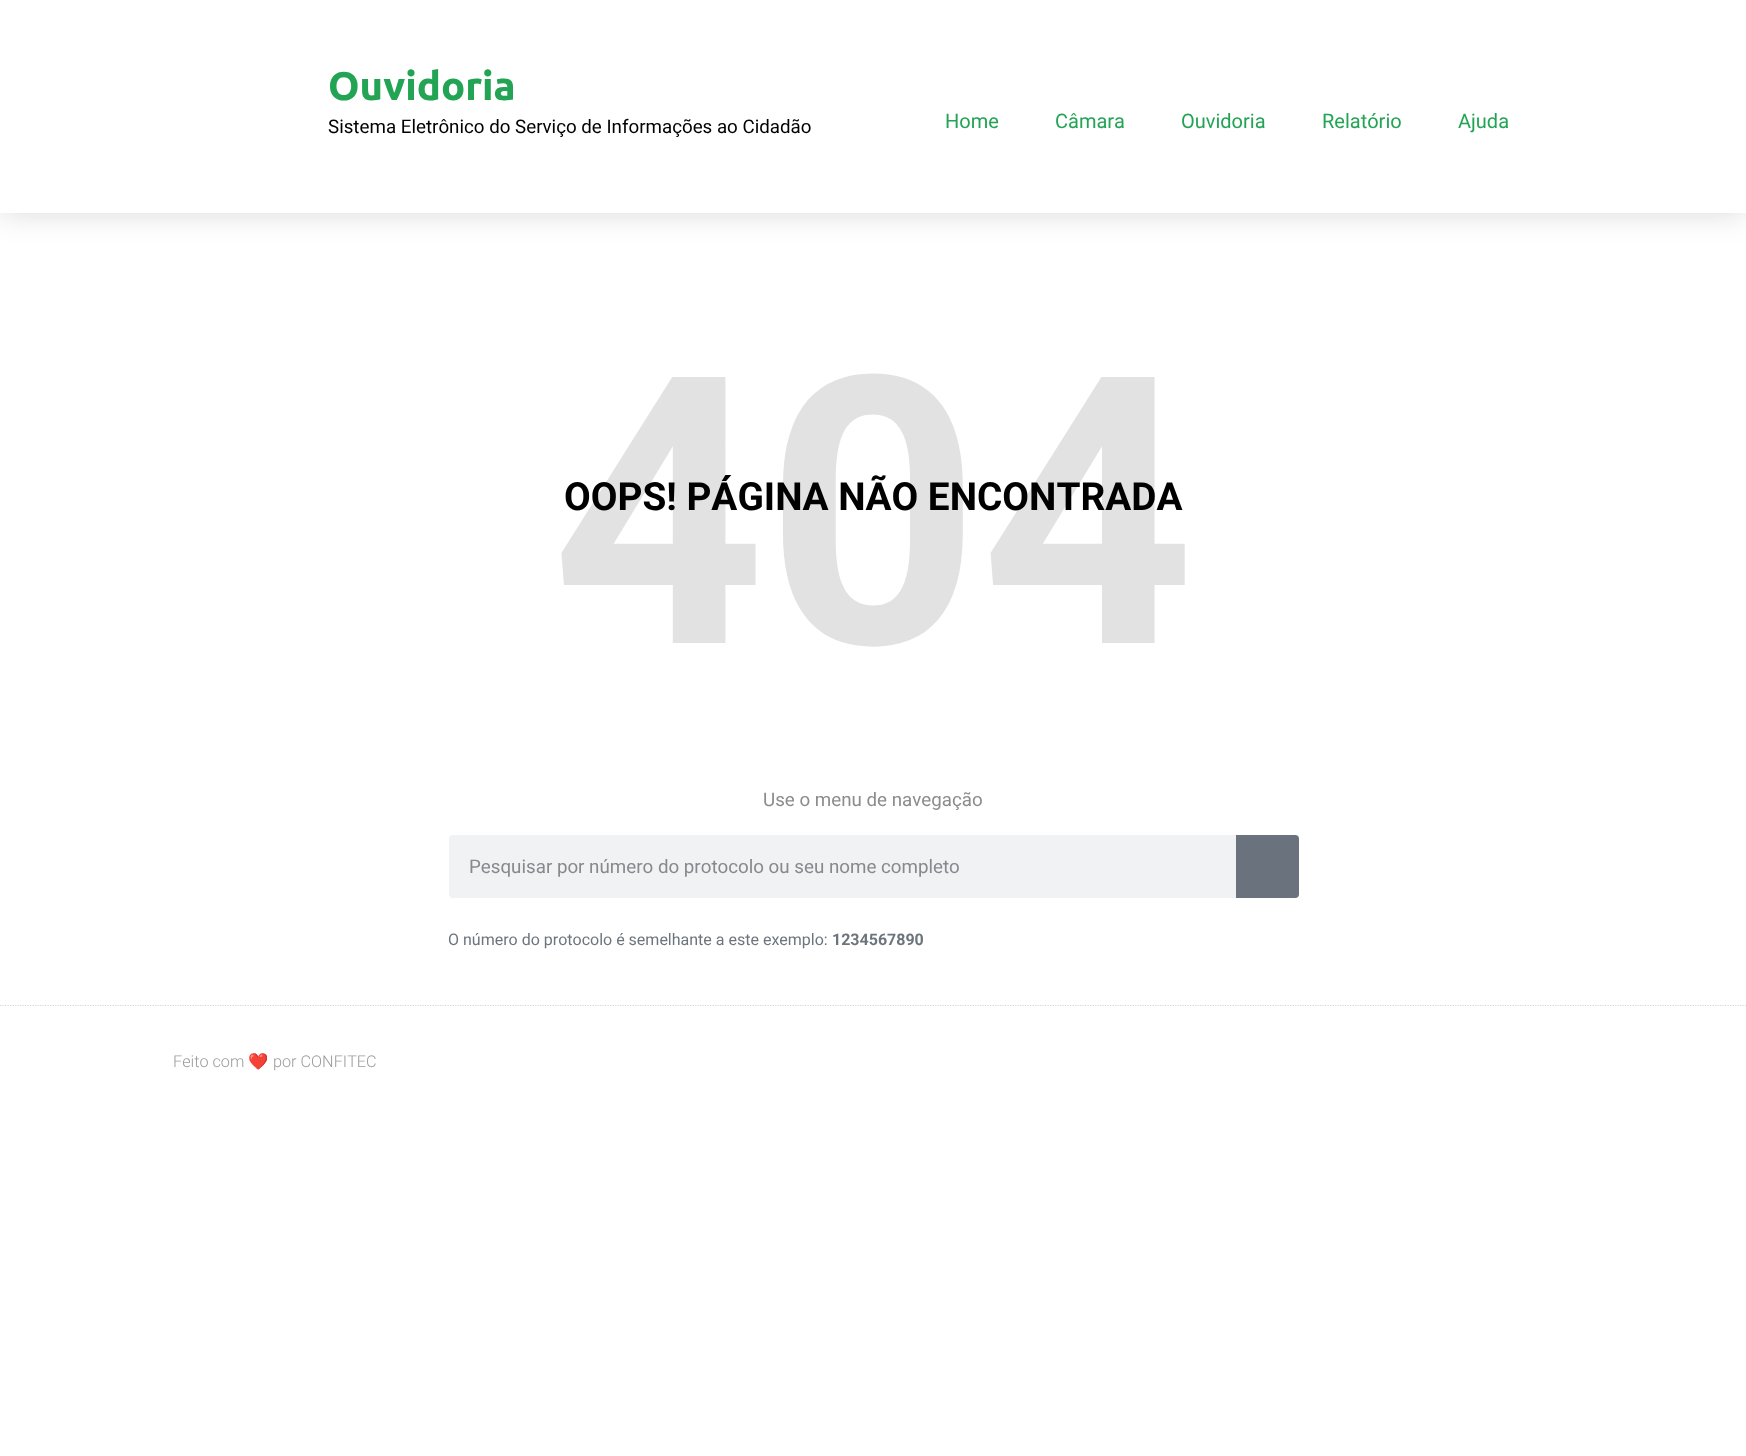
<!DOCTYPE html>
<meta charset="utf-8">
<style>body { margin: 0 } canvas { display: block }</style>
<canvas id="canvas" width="1746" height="1456"></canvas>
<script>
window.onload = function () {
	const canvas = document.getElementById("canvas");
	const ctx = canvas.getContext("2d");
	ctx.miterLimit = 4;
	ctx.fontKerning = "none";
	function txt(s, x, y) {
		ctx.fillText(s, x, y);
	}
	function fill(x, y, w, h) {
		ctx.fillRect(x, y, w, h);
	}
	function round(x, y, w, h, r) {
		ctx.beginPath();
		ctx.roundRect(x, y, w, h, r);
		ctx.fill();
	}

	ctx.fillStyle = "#FFFFFF";
	fill(0, 0, 1746, 1456);
	ctx.fillStyle = "rgba(0, 0, 0, 0.15)";
	ctx.filter = "blur(15px)";
	ctx.beginPath();
	ctx.rect(0, 0, 1746, 213);
	ctx.fill();
	ctx.filter = "none";
	ctx.fillStyle = "#FFFFFF";
	fill(0, 0, 1746, 213);
	ctx.fillStyle = "#F1F2F3";
	round(449, 835, 850, 63, 4);
	ctx.fillStyle = "#69727D";
	ctx.beginPath();
	ctx.roundRect(1236, 835, 63, 63, [0, 4, 4, 0]);
	ctx.fill();
	ctx.beginPath();
	ctx.moveTo(0, 1005.5);
	ctx.lineTo(1746, 1005.5);
	ctx.strokeStyle = "#D6D6D6";
	ctx.lineWidth = 1.2;
	ctx.setLineDash([1.25, 1.25]);
	ctx.stroke();
	ctx.font = "bold 40px Ubuntu";
	ctx.fillStyle = "#23A455";
	txt("Ouvidoria", 328, 100);
	ctx.font = "18.75px Roboto";
	ctx.fillStyle = "#000000";
	txt("Sistema Eletrônico do Serviço de Informações ao Cidadão", 328, 133);
	ctx.font = "20px Roboto";
	ctx.fillStyle = "#23A455";
	txt("Home", 945, 128);
	txt("Câmara", 1055, 128);
	txt("Ouvidoria", 1181, 128);
	txt("Relatório", 1322, 128);
	txt("Ajuda", 1458, 128);
	ctx.font = "bold 374px Roboto";
	ctx.fillStyle = "#E2E2E2";
	txt("404", 551, 643);
	ctx.font = "bold 38.75px Roboto";
	ctx.fillStyle = "#000000";
	txt("OOPS! PÁGINA NÃO ENCONTRADA", 564, 510);
	ctx.font = "18.75px Roboto";
	ctx.fillStyle = "#8C8C8C";
	txt("Use o menu de navegação", 763, 806);
	ctx.fillStyle = "#868A8E";
	txt("Pesquisar por número do protocolo ou seu nome completo", 469, 873);
	ctx.font = "16px Roboto";
	ctx.fillStyle = "#6C757D";
	txt("O número do protocolo é semelhante a este exemplo:", 448, 945);
	ctx.font = "bold 16px Roboto";
	txt("1234567890", 832, 945);
	ctx.font = "300 16.25px Roboto";
	ctx.fillStyle = "#9C9C9C";
	txt("Feito com", 173, 1067);
	ctx.font = "16.25px Noto Color Emoji";
	txt("❤", 248, 1067);
	ctx.font = "300 16.25px Roboto";
	txt("por CONFITEC", 273, 1067);
};
</script>
